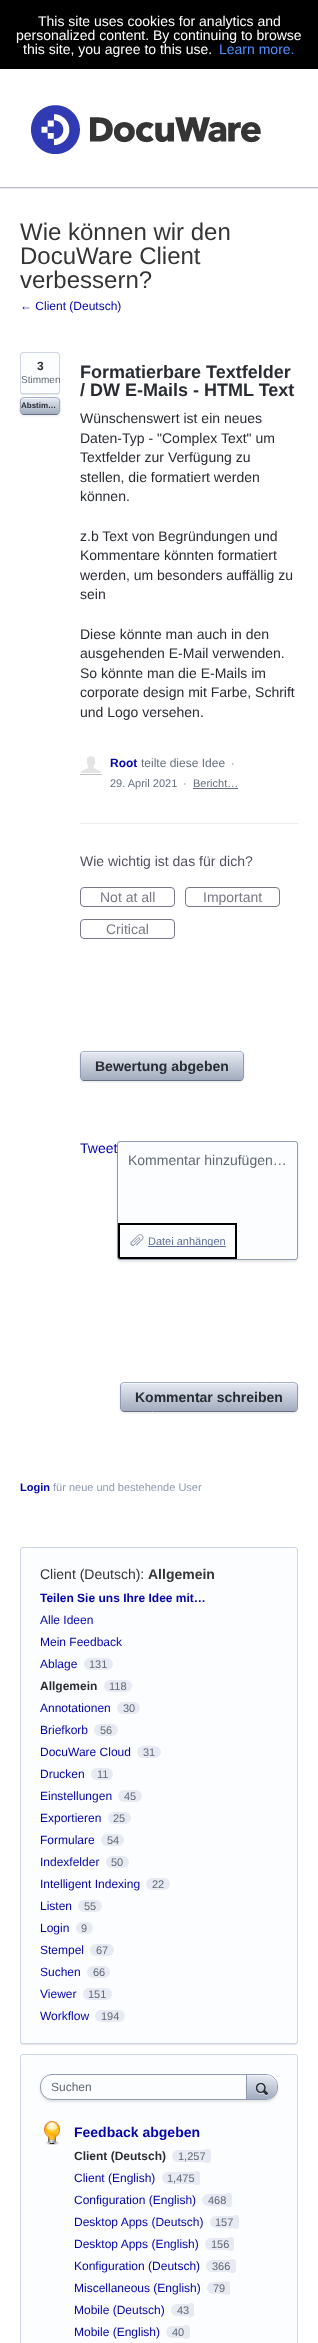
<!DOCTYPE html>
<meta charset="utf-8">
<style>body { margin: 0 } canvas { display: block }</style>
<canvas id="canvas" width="318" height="2343"></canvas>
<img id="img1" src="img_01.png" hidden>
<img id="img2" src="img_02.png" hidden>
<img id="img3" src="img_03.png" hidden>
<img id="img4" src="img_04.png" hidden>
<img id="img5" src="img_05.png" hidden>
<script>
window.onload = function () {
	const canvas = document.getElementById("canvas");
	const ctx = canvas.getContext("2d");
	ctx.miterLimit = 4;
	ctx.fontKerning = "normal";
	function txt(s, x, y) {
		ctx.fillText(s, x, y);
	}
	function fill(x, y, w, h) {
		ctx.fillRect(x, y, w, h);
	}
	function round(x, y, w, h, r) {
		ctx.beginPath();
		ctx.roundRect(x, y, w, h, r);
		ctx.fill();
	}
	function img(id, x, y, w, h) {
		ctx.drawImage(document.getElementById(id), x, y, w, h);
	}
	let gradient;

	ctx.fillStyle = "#FFFFFF";
	fill(0, 0, 318, 2343);
	ctx.fillStyle = "#000000";
	fill(0, 0, 318, 69);
	ctx.fillStyle = "#BFBFBF";
	fill(0, 187, 318, 1);
	img("img1", 31, 105, 230, 49);
	ctx.fillStyle = "#E3E8F2";
	fill(0, 188, 318, 1);
	ctx.fillStyle = "rgba(0, 0, 0, 0.1)";
	ctx.filter = "blur(0.5px)";
	ctx.beginPath();
	ctx.roundRect(20, 353, 40, 42, 3);
	ctx.fill();
	ctx.filter = "none";
	ctx.fillStyle = "#FCFDFF";
	ctx.beginPath();
	ctx.roundRect(20.5, 352.5, 39, 41, 2.5);
	ctx.fill();
	ctx.strokeStyle = "#CFD7E6";
	ctx.stroke();
	ctx.fillStyle = "rgba(0, 0, 0, 0.1)";
	ctx.filter = "blur(1px)";
	ctx.beginPath();
	ctx.roundRect(20, 398, 40, 18, 4);
	ctx.fill();
	ctx.filter = "none";
	gradient = ctx.createLinearGradient(21, 398, 21, 414);
	gradient.addColorStop(0, "#E6EAF2");
	gradient.addColorStop(1, "#A2ACBF");
	ctx.fillStyle = gradient;
	round(21, 398, 38, 16, 3);
	ctx.fillStyle = "rgba(255, 255, 255, 0.5)";
	ctx.beginPath();
	ctx.moveTo(24, 399);
	ctx.lineTo(46, 399);
	ctx.lineTo(54.5, 398.5);
	ctx.lineTo(57, 399);
	ctx.bezierCurveTo(59, 400, 59, 403, 59, 405);
	ctx.bezierCurveTo(59, 397.5, 59, 398, 50.5, 398);
	ctx.lineTo(29.5, 398);
	ctx.bezierCurveTo(23.5, 398, 21, 397, 21, 403);
	ctx.bezierCurveTo(21, 401, 22, 399, 24, 399);
	ctx.closePath();
	ctx.moveTo(59, 411);
	ctx.lineTo(59, 411.5);
	ctx.closePath();
	ctx.moveTo(21.5, 412);
	ctx.lineTo(21, 409);
	ctx.closePath();
	ctx.fill("evenodd");
	ctx.beginPath();
	ctx.moveTo(21.5, 398.5);
	ctx.bezierCurveTo(22, 398, 23, 397.5, 24, 397.5);
	ctx.lineTo(56, 397.5);
	ctx.bezierCurveTo(57, 397.5, 58, 398, 58.5, 398.5);
	ctx.strokeStyle = "#A3B1CC";
	ctx.stroke();
	ctx.beginPath();
	ctx.moveTo(58.5, 398.5);
	ctx.bezierCurveTo(60.5, 400.5, 59.5, 404, 59.5, 406);
	ctx.bezierCurveTo(59.5, 408, 60.5, 411.5, 58.5, 413.5);
	ctx.strokeStyle = "#8F9BB3";
	ctx.stroke();
	ctx.beginPath();
	ctx.moveTo(58.5, 413.5);
	ctx.bezierCurveTo(58, 414, 57, 414.5, 56, 414.5);
	ctx.lineTo(24, 414.5);
	ctx.bezierCurveTo(23, 414.5, 22, 414, 21.5, 413.5);
	ctx.strokeStyle = "#666F80";
	ctx.stroke();
	ctx.beginPath();
	ctx.moveTo(21.5, 413.5);
	ctx.bezierCurveTo(19.5, 411.5, 20.5, 408, 20.5, 406);
	ctx.bezierCurveTo(20.5, 404, 19.5, 400.5, 21.5, 398.5);
	ctx.strokeStyle = "#8F9BB3";
	ctx.stroke();
	ctx.save();
	ctx.beginPath();
	ctx.moveTo(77, 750);
	ctx.lineTo(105, 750);
	ctx.lineTo(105, 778);
	ctx.lineTo(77, 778);
	ctx.closePath();
	ctx.moveTo(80, 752);
	ctx.lineTo(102, 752);
	ctx.lineTo(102, 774);
	ctx.lineTo(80, 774);
	ctx.closePath();
	ctx.clip("evenodd");
	ctx.fillStyle = "rgba(0, 0, 0, 0.25)";
	ctx.filter = "blur(0.5px)";
	ctx.beginPath();
	ctx.rect(80, 753, 22, 22);
	ctx.fill();
	ctx.filter = "none";
	ctx.restore();
	img("img2", 81, 756, 20, 17);
	ctx.fillStyle = "#666F80";
	fill(193, 788, 45, 1);
	ctx.fillStyle = "#EBEBF1";
	fill(80, 823, 218, 1);
	ctx.beginPath();
	ctx.roundRect(80.5, 887.5, 94, 19, 3.5);
	ctx.strokeStyle = "#797986";
	ctx.stroke();
	ctx.beginPath();
	ctx.roundRect(185.5, 887.5, 94, 19, 3.5);
	ctx.stroke();
	ctx.beginPath();
	ctx.roundRect(80.5, 919.5, 94, 19, 3.5);
	ctx.stroke();
	ctx.fillStyle = "rgba(0, 0, 0, 0.1)";
	ctx.filter = "blur(1px)";
	ctx.beginPath();
	ctx.roundRect(80, 1052, 164, 30, 4);
	ctx.fill();
	ctx.filter = "none";
	gradient = ctx.createLinearGradient(81, 1052, 81, 1080);
	gradient.addColorStop(0, "#E6EAF2");
	gradient.addColorStop(1, "#A2ACBF");
	ctx.fillStyle = gradient;
	round(81, 1052, 162, 28, 3);
	ctx.fillStyle = "rgba(255, 255, 255, 0.5)";
	ctx.beginPath();
	ctx.moveTo(84, 1053);
	ctx.lineTo(240, 1053);
	ctx.bezierCurveTo(242, 1053, 243, 1054, 243, 1056);
	ctx.bezierCurveTo(243, 1054, 242, 1052, 240, 1052);
	ctx.lineTo(83, 1052);
	ctx.bezierCurveTo(81, 1052, 81, 1054, 81, 1056);
	ctx.bezierCurveTo(81, 1054, 82, 1053, 84, 1053);
	ctx.closePath();
	ctx.fill();
	ctx.beginPath();
	ctx.moveTo(81.5, 1052.5);
	ctx.bezierCurveTo(82, 1052, 83, 1051.5, 84, 1051.5);
	ctx.lineTo(240, 1051.5);
	ctx.bezierCurveTo(241, 1051.5, 242, 1052, 242.5, 1052.5);
	ctx.strokeStyle = "#A3B1CC";
	ctx.stroke();
	ctx.beginPath();
	ctx.moveTo(242.5, 1052.5);
	ctx.bezierCurveTo(243, 1053, 243.5, 1054, 243.5, 1055);
	ctx.lineTo(243.5, 1077);
	ctx.bezierCurveTo(243.5, 1078, 243, 1079, 242.5, 1079.5);
	ctx.strokeStyle = "#8F9BB3";
	ctx.stroke();
	ctx.beginPath();
	ctx.moveTo(242.5, 1079.5);
	ctx.bezierCurveTo(242, 1080, 241, 1080.5, 240, 1080.5);
	ctx.lineTo(84, 1080.5);
	ctx.bezierCurveTo(83, 1080.5, 82, 1080, 81.5, 1079.5);
	ctx.strokeStyle = "#666F80";
	ctx.stroke();
	ctx.beginPath();
	ctx.moveTo(81.5, 1079.5);
	ctx.bezierCurveTo(81, 1079, 80.5, 1078, 80.5, 1077);
	ctx.lineTo(80.5, 1055);
	ctx.bezierCurveTo(80.5, 1054, 81, 1053, 81.5, 1052.5);
	ctx.strokeStyle = "#8F9BB3";
	ctx.stroke();
	ctx.fillStyle = "rgba(0, 0, 0, 0.1)";
	ctx.filter = "blur(1px)";
	ctx.beginPath();
	ctx.roundRect(117, 1143, 181, 119, 3);
	ctx.fill();
	ctx.filter = "none";
	ctx.fillStyle = "#FCFDFF";
	ctx.beginPath();
	ctx.roundRect(117.5, 1141.5, 180, 118, 2.5);
	ctx.fill();
	ctx.stroke();
	img("img3", 130, 1234, 14, 12);
	ctx.fillStyle = "#000000";
	ctx.beginPath();
	ctx.moveTo(118, 1223);
	ctx.lineTo(118, 1257);
	ctx.bezierCurveTo(118, 1258, 119, 1259, 120, 1259);
	ctx.lineTo(237, 1259);
	ctx.lineTo(237, 1223);
	ctx.closePath();
	ctx.moveTo(120, 1225);
	ctx.lineTo(120, 1257);
	ctx.lineTo(235, 1257);
	ctx.lineTo(235, 1225);
	ctx.closePath();
	ctx.fill("evenodd");
	ctx.fillStyle = "#5D7298";
	fill(148, 1246, 78, 1);
	ctx.fillStyle = "rgba(0, 0, 0, 0.1)";
	ctx.filter = "blur(1px)";
	ctx.beginPath();
	ctx.roundRect(120, 1383, 178, 30, 4);
	ctx.fill();
	ctx.filter = "none";
	gradient = ctx.createLinearGradient(121, 1383, 121, 1411);
	gradient.addColorStop(0, "#E6EAF2");
	gradient.addColorStop(1, "#A2ACBF");
	ctx.fillStyle = gradient;
	round(121, 1383, 176, 28, 3);
	ctx.fillStyle = "rgba(255, 255, 255, 0.5)";
	ctx.beginPath();
	ctx.moveTo(124, 1384);
	ctx.lineTo(294, 1384);
	ctx.bezierCurveTo(296, 1384, 297, 1385, 297, 1387);
	ctx.lineTo(297, 1386);
	ctx.bezierCurveTo(297, 1384, 296, 1383, 294, 1383);
	ctx.lineTo(124, 1383);
	ctx.bezierCurveTo(122, 1383, 121, 1384, 121, 1386);
	ctx.lineTo(121, 1387);
	ctx.bezierCurveTo(121, 1385, 122, 1384, 124, 1384);
	ctx.closePath();
	ctx.fill();
	ctx.beginPath();
	ctx.moveTo(121.5, 1383.5);
	ctx.lineTo(123.5, 1382.5);
	ctx.lineTo(265.5, 1382.5);
	ctx.lineTo(294, 1382.5);
	ctx.lineTo(296.5, 1383.5);
	ctx.strokeStyle = "#A3B1CC";
	ctx.stroke();
	ctx.beginPath();
	ctx.moveTo(296.5, 1383.5);
	ctx.bezierCurveTo(297, 1384, 297.5, 1385, 297.5, 1386);
	ctx.lineTo(297.5, 1408);
	ctx.bezierCurveTo(297.5, 1409, 297, 1410, 296.5, 1410.5);
	ctx.strokeStyle = "#8F9BB3";
	ctx.stroke();
	ctx.beginPath();
	ctx.moveTo(296.5, 1410.5);
	ctx.lineTo(294.5, 1411.5);
	ctx.lineTo(152.5, 1411.5);
	ctx.lineTo(124, 1411.5);
	ctx.lineTo(121.5, 1410.5);
	ctx.strokeStyle = "#666F80";
	ctx.stroke();
	ctx.beginPath();
	ctx.moveTo(121.5, 1410.5);
	ctx.bezierCurveTo(121, 1410, 120.5, 1409, 120.5, 1408);
	ctx.lineTo(120.5, 1386);
	ctx.bezierCurveTo(120.5, 1385, 121, 1384, 121.5, 1383.5);
	ctx.strokeStyle = "#8F9BB3";
	ctx.stroke();
	ctx.fillStyle = "rgba(0, 0, 0, 0.1)";
	ctx.filter = "blur(0.5px)";
	ctx.beginPath();
	ctx.roundRect(20, 1548, 278, 497, 3);
	ctx.fill();
	ctx.filter = "none";
	ctx.fillStyle = "#FCFDFF";
	ctx.beginPath();
	ctx.roundRect(20.5, 1547.5, 277, 496, 2.5);
	ctx.fill();
	ctx.strokeStyle = "#CFD7E6";
	ctx.stroke();
	ctx.fillStyle = "#E7EAF2";
	round(84, 1658, 29, 12, 6);
	round(104, 1680, 28, 12, 6);
	round(117, 1702, 23, 12, 6);
	round(94, 1724, 24, 12, 6);
	round(137, 1746, 24, 12, 6);
	round(91, 1768, 22, 12, 6);
	round(118, 1790, 24, 12, 6);
	round(108, 1812, 23, 12, 6);
	round(101, 1834, 23, 12, 6);
	round(106, 1856, 23, 12, 6);
	round(146, 1878, 24, 12, 6);
	round(78, 1900, 24, 12, 6);
	round(76, 1922, 17, 12, 6);
	round(90, 1944, 24, 12, 6);
	round(87, 1966, 23, 12, 6);
	round(83, 1988, 29, 12, 6);
	round(95, 2010, 30, 12, 6);
	ctx.fillStyle = "#FCFDFF";
	ctx.beginPath();
	ctx.roundRect(20.5, 2054.5, 277, 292, 2.5);
	ctx.fill();
	ctx.stroke();
	ctx.fillStyle = "rgba(0, 0, 0, 0.1)";
	ctx.filter = "blur(1px)";
	ctx.beginPath();
	ctx.roundRect(40, 2076, 238, 26, 12);
	ctx.fill();
	ctx.filter = "none";
	ctx.fillStyle = "#FCFDFF";
	ctx.beginPath();
	ctx.roundRect(40.5, 2074.5, 237, 25, 11.5);
	ctx.fill();
	ctx.strokeStyle = "#8F9BB3";
	ctx.stroke();
	ctx.save();
	ctx.beginPath();
	ctx.rect(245, 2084, 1, 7);
	ctx.clip();
	ctx.fillStyle = "rgba(0, 0, 0, 0.1)";
	ctx.filter = "blur(1px)";
	ctx.beginPath();
	ctx.roundRect(246, 2075, 32, 25, 12);
	ctx.fill();
	ctx.filter = "none";
	ctx.restore();
	gradient = ctx.createLinearGradient(247, 2075, 247, 2099);
	gradient.addColorStop(0, "#E6EAF2");
	gradient.addColorStop(1, "#A2ACBF");
	ctx.fillStyle = gradient;
	ctx.beginPath();
	ctx.moveTo(247, 2075);
	ctx.lineTo(266, 2075);
	ctx.bezierCurveTo(272, 2075, 277, 2080, 277, 2086);
	ctx.lineTo(277, 2087);
	ctx.bezierCurveTo(277, 2093.5, 272, 2099, 266, 2099);
	ctx.lineTo(247, 2099);
	ctx.closePath();
	ctx.fill();
	ctx.fillStyle = "rgba(255, 255, 255, 0.5)";
	ctx.beginPath();
	ctx.moveTo(247, 2075);
	ctx.lineTo(247, 2076);
	ctx.lineTo(266, 2076);
	ctx.bezierCurveTo(272, 2076, 277, 2081, 277, 2087);
	ctx.bezierCurveTo(277, 2080.5, 273, 2075, 266, 2075);
	ctx.closePath();
	ctx.fill();
	ctx.fillStyle = "#8F9BB3";
	ctx.beginPath();
	ctx.moveTo(277, 2087);
	ctx.bezierCurveTo(277, 2093.5, 273, 2099, 266, 2099);
	ctx.bezierCurveTo(272, 2099, 277, 2093.5, 277, 2087);
	ctx.closePath();
	ctx.fill();
	fill(246, 2075, 1, 24);
	img("img4", 256, 2083, 12, 13);
	img("img5", 44, 2121, 16, 24);
	ctx.fillStyle = "#E7EAF2";
	ctx.beginPath();
	ctx.roundRect(172, 2150, 33, 12, [6, 0, 0, 6]);
	ctx.fill();
	ctx.beginPath();
	ctx.roundRect(205, 2149, 6, 14, [0, 3, 3, 0]);
	ctx.fill();
	ctx.beginPath();
	ctx.roundRect(162, 2172, 33, 12, [6, 0, 0, 6]);
	ctx.fill();
	ctx.beginPath();
	ctx.roundRect(195, 2171, 5, 14, [0, 2.5, 2.5, 0]);
	ctx.fill();
	ctx.beginPath();
	ctx.roundRect(202, 2194, 24, 12, [6, 0, 0, 6]);
	ctx.fill();
	ctx.beginPath();
	ctx.roundRect(226, 2193, 6, 14, [0, 3, 3, 0]);
	ctx.fill();
	ctx.beginPath();
	ctx.roundRect(210, 2216, 24, 12, [6, 0, 0, 6]);
	ctx.fill();
	ctx.beginPath();
	ctx.roundRect(234, 2215, 5, 14, [0, 2.5, 2.5, 0]);
	ctx.fill();
	ctx.beginPath();
	ctx.roundRect(205, 2238, 24, 12, [6, 0, 0, 6]);
	ctx.fill();
	ctx.beginPath();
	ctx.roundRect(229, 2237, 5, 14, [0, 2.5, 2.5, 0]);
	ctx.fill();
	ctx.beginPath();
	ctx.roundRect(206, 2260, 24, 12, [6, 0, 0, 6]);
	ctx.fill();
	ctx.beginPath();
	ctx.roundRect(230, 2259, 6, 14, [0, 3, 3, 0]);
	ctx.fill();
	ctx.beginPath();
	ctx.roundRect(207, 2282, 18, 12, [6, 0, 0, 6]);
	ctx.fill();
	ctx.beginPath();
	ctx.roundRect(225, 2281, 5, 14, [0, 2.5, 2.5, 0]);
	ctx.fill();
	ctx.beginPath();
	ctx.roundRect(171, 2304, 18, 12, [6, 0, 0, 6]);
	ctx.fill();
	ctx.beginPath();
	ctx.roundRect(189, 2303, 5, 14, [0, 2.5, 2.5, 0]);
	ctx.fill();
	ctx.beginPath();
	ctx.roundRect(166, 2326, 18, 12, [6, 0, 0, 6]);
	ctx.fill();
	ctx.beginPath();
	ctx.roundRect(184, 2325, 6, 14, [0, 3, 3, 0]);
	ctx.fill();
	ctx.font = "14px Liberation Sans";
	ctx.fillStyle = "#FFFFFF";
	txt("This site uses cookies for analytics and", 38, 26);
	txt("personalized content. By continuing to browse", 16, 40);
	txt("this site, you agree to this use.", 23, 54);
	ctx.fillStyle = "#4F92FF";
	txt("Learn more.", 219, 54);
	ctx.font = "24px Liberation Sans";
	ctx.fillStyle = "#353535";
	txt("Wie können wir den", 20, 240);
	txt("DocuWare Client", 20, 264);
	txt("verbessern?", 20, 288);
	ctx.font = "12px Liberation Sans";
	ctx.fillStyle = "#0303AB";
	txt("← Client (Deutsch)", 20, 310);
	ctx.font = "bold 12px Liberation Sans";
	ctx.fillStyle = "#292C33";
	txt("3", 37, 370);
	ctx.font = "10px Liberation Sans";
	ctx.fillStyle = "#616973";
	txt("Stimmen", 21, 383);
	ctx.font = "bold 8px Liberation Sans";
	ctx.fillStyle = "#292C33";
	txt("Abstim…", 21, 408);
	ctx.font = "bold 18px Liberation Sans";
	txt("Formatierbare Textfelder", 80, 378);
	txt("/ DW E-Mails - HTML Text", 80, 396);
	ctx.font = "14px Liberation Sans";
	txt("Wünschenswert ist ein neues", 80, 423);
	txt("Daten-Typ - \"Complex Text\" um", 80, 443);
	txt("Textfelder zur Verfügung zu", 80, 462);
	txt("stellen, die formatiert werden", 80, 482);
	txt("können.", 80, 501);
	txt("z.b Text von Begründungen und", 80, 541);
	txt("Kommentare könnten formatiert", 80, 560);
	txt("werden, um besonders auffällig zu", 80, 580);
	txt("sein", 80, 599);
	txt("Diese könnte man auch in den", 80, 639);
	txt("ausgehenden E-Mail verwenden.", 80, 658);
	txt("So könnte man die E-Mails im", 80, 678);
	txt("corporate design mit Farbe, Schrift", 80, 697);
	txt("und Logo versehen.", 80, 717);
	ctx.font = "bold 12px Liberation Sans";
	ctx.fillStyle = "#0303AB";
	txt("Root", 110, 767);
	ctx.font = "12px Liberation Sans";
	ctx.fillStyle = "#666F80";
	txt("teilte diese Idee", 141, 767);
	ctx.font = "11px Liberation Sans";
	ctx.fillStyle = "#616973";
	txt("·", 231, 767);
	ctx.fillStyle = "#666F80";
	txt("29. April 2021", 110, 787);
	ctx.fillStyle = "#616973";
	txt("·", 183, 787);
	ctx.fillStyle = "#666F80";
	txt("Bericht…", 193, 787);
	ctx.font = "14px Liberation Sans";
	ctx.fillStyle = "#525260";
	txt("Wie wichtig ist das für dich?", 80, 866);
	ctx.fillStyle = "#797986";
	txt("Not at all", 100, 902);
	txt("Important", 203, 902);
	txt("Critical", 106, 934);
	ctx.font = "bold 14px Liberation Sans";
	ctx.fillStyle = "#292C33";
	txt("Bewertung abgeben", 95, 1071);
	ctx.font = "14px Liberation Sans";
	ctx.fillStyle = "#0303AB";
	txt("Tweet", 80, 1153);
	ctx.fillStyle = "#616973";
	txt("Kommentar hinzufügen…", 128, 1165);
	ctx.font = "11px Liberation Sans";
	ctx.fillStyle = "#5D7298";
	txt("Datei anhängen", 148, 1245);
	ctx.font = "bold 14px Liberation Sans";
	ctx.fillStyle = "#292C33";
	txt("Kommentar schreiben", 135, 1402);
	ctx.font = "bold 11px Liberation Sans";
	ctx.fillStyle = "#0303AB";
	txt("Login", 20, 1491);
	ctx.font = "11px Liberation Sans";
	ctx.fillStyle = "#8F9BB3";
	txt("für neue und bestehende User", 53, 1491);
	ctx.font = "14px Liberation Sans";
	ctx.fillStyle = "#353535";
	txt("Client (Deutsch):", 40, 1579);
	ctx.font = "bold 14px Liberation Sans";
	txt("Allgemein", 148, 1579);
	ctx.font = "bold 12px Liberation Sans";
	ctx.fillStyle = "#0303AB";
	txt("Teilen Sie uns Ihre Idee mit…", 40, 1602);
	ctx.font = "12px Liberation Sans";
	txt("Alle Ideen", 40, 1624);
	txt("Mein Feedback", 40, 1646);
	txt("Ablage", 40, 1668);
	ctx.font = "11px Liberation Sans";
	ctx.fillStyle = "#616973";
	txt("131", 89, 1668);
	ctx.font = "bold 12px Liberation Sans";
	ctx.fillStyle = "#292C33";
	txt("Allgemein", 40, 1690);
	ctx.font = "11px Liberation Sans";
	ctx.fillStyle = "#616973";
	txt("118", 109, 1690);
	ctx.font = "12px Liberation Sans";
	ctx.fillStyle = "#0303AB";
	txt("Annotationen", 40, 1712);
	ctx.font = "11px Liberation Sans";
	ctx.fillStyle = "#616973";
	txt("30", 123, 1712);
	ctx.font = "12px Liberation Sans";
	ctx.fillStyle = "#0303AB";
	txt("Briefkorb", 40, 1734);
	ctx.font = "11px Liberation Sans";
	ctx.fillStyle = "#616973";
	txt("56", 100, 1734);
	ctx.font = "12px Liberation Sans";
	ctx.fillStyle = "#0303AB";
	txt("DocuWare Cloud", 40, 1756);
	ctx.font = "11px Liberation Sans";
	ctx.fillStyle = "#616973";
	txt("31", 143, 1756);
	ctx.font = "12px Liberation Sans";
	ctx.fillStyle = "#0303AB";
	txt("Drucken", 40, 1778);
	ctx.font = "11px Liberation Sans";
	ctx.fillStyle = "#616973";
	txt("11", 97, 1778);
	ctx.font = "12px Liberation Sans";
	ctx.fillStyle = "#0303AB";
	txt("Einstellungen", 40, 1800);
	ctx.font = "11px Liberation Sans";
	ctx.fillStyle = "#616973";
	txt("45", 124, 1800);
	ctx.font = "12px Liberation Sans";
	ctx.fillStyle = "#0303AB";
	txt("Exportieren", 40, 1822);
	ctx.font = "11px Liberation Sans";
	ctx.fillStyle = "#616973";
	txt("25", 113, 1822);
	ctx.font = "12px Liberation Sans";
	ctx.fillStyle = "#0303AB";
	txt("Formulare", 40, 1844);
	ctx.font = "11px Liberation Sans";
	ctx.fillStyle = "#616973";
	txt("54", 107, 1844);
	ctx.font = "12px Liberation Sans";
	ctx.fillStyle = "#0303AB";
	txt("Indexfelder", 40, 1866);
	ctx.font = "11px Liberation Sans";
	ctx.fillStyle = "#616973";
	txt("50", 111, 1866);
	ctx.font = "12px Liberation Sans";
	ctx.fillStyle = "#0303AB";
	txt("Intelligent Indexing", 40, 1888);
	ctx.font = "11px Liberation Sans";
	ctx.fillStyle = "#616973";
	txt("22", 152, 1888);
	ctx.font = "12px Liberation Sans";
	ctx.fillStyle = "#0303AB";
	txt("Listen", 40, 1910);
	ctx.font = "11px Liberation Sans";
	ctx.fillStyle = "#616973";
	txt("55", 84, 1910);
	ctx.font = "12px Liberation Sans";
	ctx.fillStyle = "#0303AB";
	txt("Login", 40, 1932);
	ctx.font = "11px Liberation Sans";
	ctx.fillStyle = "#616973";
	txt("9", 81, 1932);
	ctx.font = "12px Liberation Sans";
	ctx.fillStyle = "#0303AB";
	txt("Stempel", 40, 1954);
	ctx.font = "11px Liberation Sans";
	ctx.fillStyle = "#616973";
	txt("67", 96, 1954);
	ctx.font = "12px Liberation Sans";
	ctx.fillStyle = "#0303AB";
	txt("Suchen", 40, 1976);
	ctx.font = "11px Liberation Sans";
	ctx.fillStyle = "#616973";
	txt("66", 93, 1976);
	ctx.font = "12px Liberation Sans";
	ctx.fillStyle = "#0303AB";
	txt("Viewer", 40, 1998);
	ctx.font = "11px Liberation Sans";
	ctx.fillStyle = "#616973";
	txt("151", 88, 1998);
	ctx.font = "12px Liberation Sans";
	ctx.fillStyle = "#0303AB";
	txt("Workflow", 40, 2020);
	ctx.font = "11px Liberation Sans";
	ctx.fillStyle = "#616973";
	txt("194", 101, 2020);
	ctx.font = "12px Liberation Sans";
	txt("Suchen", 51, 2091);
	ctx.font = "bold 14px Liberation Sans";
	ctx.fillStyle = "#0303AB";
	txt("Feedback abgeben", 74, 2137);
	ctx.font = "bold 12px Liberation Sans";
	ctx.fillStyle = "#292C33";
	txt("Client (Deutsch)", 74, 2160);
	ctx.font = "11px Liberation Sans";
	ctx.fillStyle = "#616973";
	txt("1,257", 178, 2160);
	ctx.font = "12px Liberation Sans";
	ctx.fillStyle = "#0303AB";
	txt("Client (English)", 74, 2182);
	ctx.font = "11px Liberation Sans";
	ctx.fillStyle = "#616973";
	txt("1,475", 167, 2182);
	ctx.font = "12px Liberation Sans";
	ctx.fillStyle = "#0303AB";
	txt("Configuration (English)", 74, 2204);
	ctx.font = "11px Liberation Sans";
	ctx.fillStyle = "#616973";
	txt("468", 208, 2204);
	ctx.font = "12px Liberation Sans";
	ctx.fillStyle = "#0303AB";
	txt("Desktop Apps (Deutsch)", 74, 2226);
	ctx.font = "11px Liberation Sans";
	ctx.fillStyle = "#616973";
	txt("157", 215, 2226);
	ctx.font = "12px Liberation Sans";
	ctx.fillStyle = "#0303AB";
	txt("Desktop Apps (English)", 74, 2248);
	ctx.font = "11px Liberation Sans";
	ctx.fillStyle = "#616973";
	txt("156", 211, 2248);
	ctx.font = "12px Liberation Sans";
	ctx.fillStyle = "#0303AB";
	txt("Konfiguration (Deutsch)", 74, 2270);
	ctx.font = "11px Liberation Sans";
	ctx.fillStyle = "#616973";
	txt("366", 212, 2270);
	ctx.font = "12px Liberation Sans";
	ctx.fillStyle = "#0303AB";
	txt("Miscellaneous (English)", 74, 2292);
	ctx.font = "11px Liberation Sans";
	ctx.fillStyle = "#616973";
	txt("79", 213, 2292);
	ctx.font = "12px Liberation Sans";
	ctx.fillStyle = "#0303AB";
	txt("Mobile (Deutsch)", 74, 2314);
	ctx.font = "11px Liberation Sans";
	ctx.fillStyle = "#616973";
	txt("43", 177, 2314);
	ctx.font = "12px Liberation Sans";
	ctx.fillStyle = "#0303AB";
	txt("Mobile (English)", 74, 2336);
	ctx.font = "11px Liberation Sans";
	ctx.fillStyle = "#616973";
	txt("40", 172, 2336);
};
</script>
